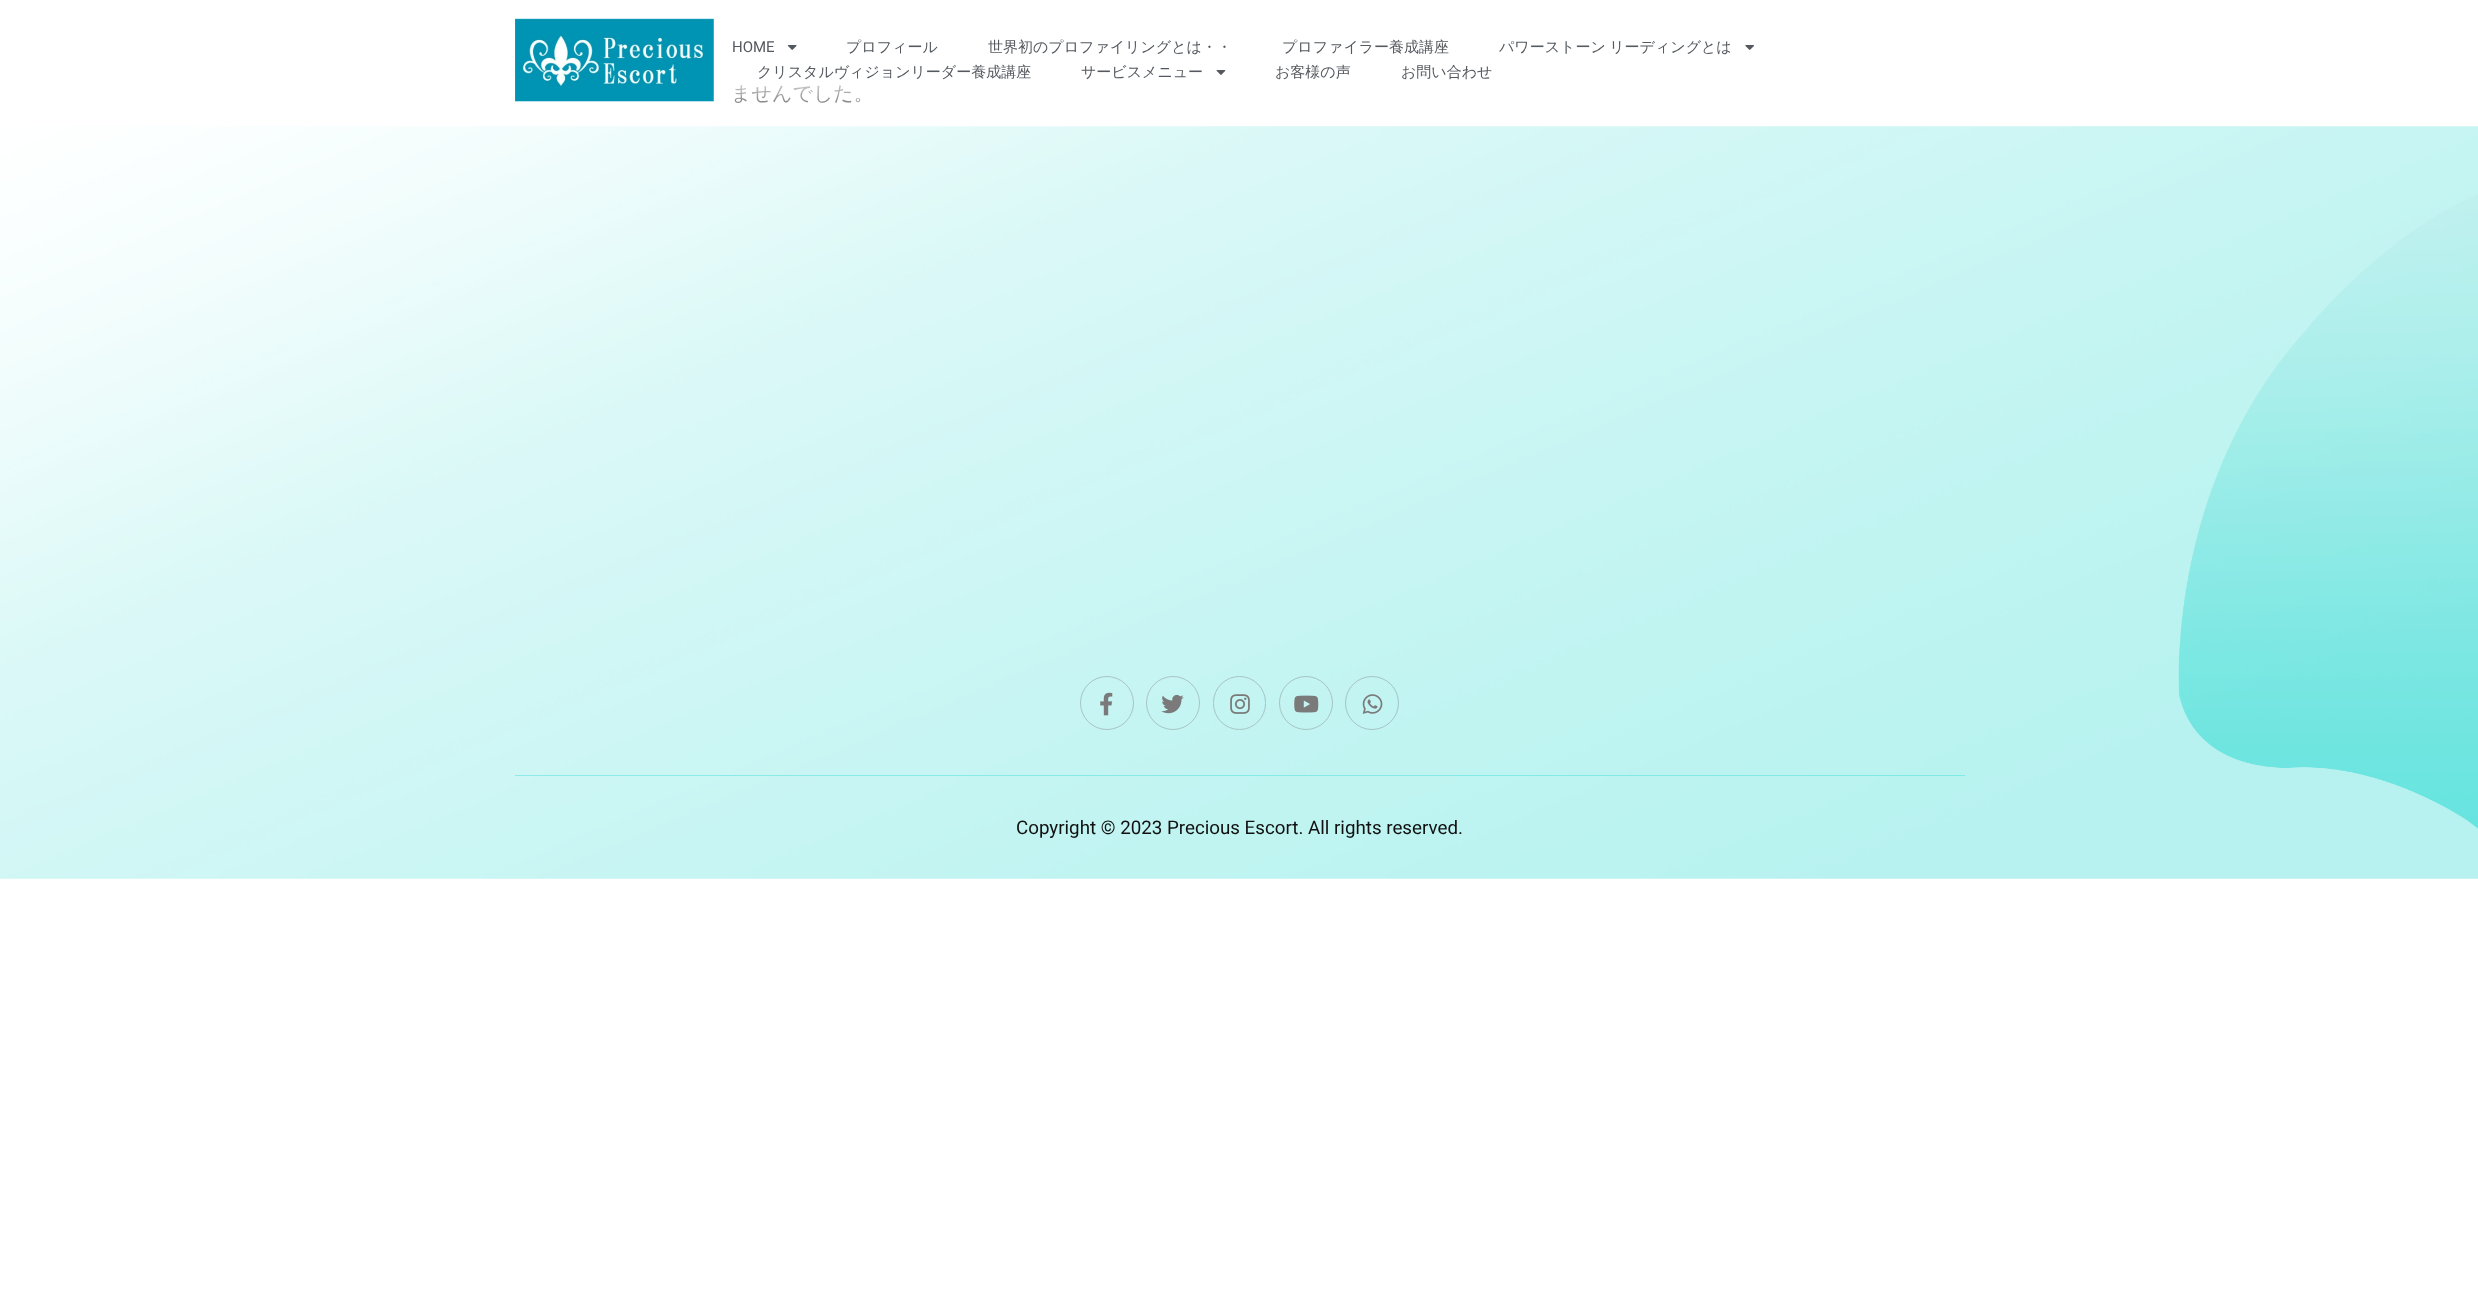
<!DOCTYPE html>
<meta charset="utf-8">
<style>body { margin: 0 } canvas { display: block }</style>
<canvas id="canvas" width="2478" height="1293"></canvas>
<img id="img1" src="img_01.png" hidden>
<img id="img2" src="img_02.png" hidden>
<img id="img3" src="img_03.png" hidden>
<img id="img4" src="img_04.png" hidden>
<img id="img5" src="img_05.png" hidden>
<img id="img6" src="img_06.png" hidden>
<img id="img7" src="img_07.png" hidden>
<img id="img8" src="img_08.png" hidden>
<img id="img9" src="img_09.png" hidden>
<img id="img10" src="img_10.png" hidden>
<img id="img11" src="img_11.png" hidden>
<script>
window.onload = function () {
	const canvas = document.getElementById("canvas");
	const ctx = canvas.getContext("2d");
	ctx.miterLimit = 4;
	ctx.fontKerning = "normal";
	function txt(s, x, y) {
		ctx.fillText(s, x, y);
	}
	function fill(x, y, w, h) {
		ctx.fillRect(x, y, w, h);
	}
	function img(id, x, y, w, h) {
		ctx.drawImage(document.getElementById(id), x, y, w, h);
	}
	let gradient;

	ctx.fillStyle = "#FFFFFF";
	fill(0, 0, 2478, 1293);
	img("img1", 515, 18, 199, 84);
	img("img2", 787, 45, 10, 5);
	img("img3", 1745, 45, 9, 5);
	img("img4", 1216, 70, 10, 5);
	img("img5", 2178, 195, 300, 634);
	img("img6", 0, 126, 2478, 753);
	ctx.beginPath();
	ctx.arc(1107, 703, 26.5, 0, Math.PI * 2);
	ctx.strokeStyle = "#A8C4C3";
	ctx.stroke();
	img("img7", 1100, 692, 13, 24);
	ctx.beginPath();
	ctx.arc(1173, 703, 26.5, 0, Math.PI * 2);
	ctx.strokeStyle = "rgba(120, 120, 120, 0.39)";
	ctx.stroke();
	img("img8", 1161, 694, 23, 20);
	ctx.beginPath();
	ctx.roundRect(1213.5, 676.5, 52, 53, 26);
	ctx.strokeStyle = "#A6C4C3";
	ctx.stroke();
	img("img9", 1230, 694, 20, 20);
	ctx.beginPath();
	ctx.arc(1306, 703, 26.5, 0, Math.PI * 2);
	ctx.strokeStyle = "#A6C4C2";
	ctx.stroke();
	img("img10", 1294, 695, 25, 18);
	ctx.beginPath();
	ctx.arc(1372, 703, 26.5, 0, Math.PI * 2);
	ctx.strokeStyle = "rgba(120, 120, 120, 0.39)";
	ctx.stroke();
	img("img11", 1362, 694, 21, 20);
	ctx.fillStyle = "rgba(21, 213, 204, 0.34)";
	fill(515, 775, 1450, 1);
	ctx.font = "15px Roboto";
	ctx.fillStyle = "#54595F";
	txt("HOME", 732, 52);
	ctx.font = "500 15px WenQuanYi Zen Hei";
	txt("プロフィール", 846, 52);
	txt("世界初のプロファイリングとは・・", 988, 52);
	txt("プロファイラー養成講座", 1282, 52);
	ctx.wordSpacing = "-1px";
	txt("パワーストーン リーディングとは", 1499, 52);
	ctx.wordSpacing = "0px";
	txt("クリスタルヴィジョンリーダー養成講座", 757, 77);
	txt("サービスメニュー", 1081, 77);
	txt("お客様の声", 1275, 77);
	txt("お問い合わせ", 1401, 77);
	ctx.font = "500 20px WenQuanYi Zen Hei";
	ctx.fillStyle = "#333333";
	txt("ませんでした。", 731, 100);
	gradient = ctx.createLinearGradient(1239, 0, 1239, 126);
	gradient.addColorStop(0.6, "rgba(255, 255, 255, 0.9)");
	gradient.addColorStop(1, "rgba(255, 255, 255, 0)");
	ctx.fillStyle = gradient;
	fill(734, 85, 126, 18);
	ctx.font = "18.75px Roboto";
	ctx.fillStyle = "#111111";
	txt("Copyright © 2023 Precious Escort. All rights reserved.", 1016, 834);
};
</script>
